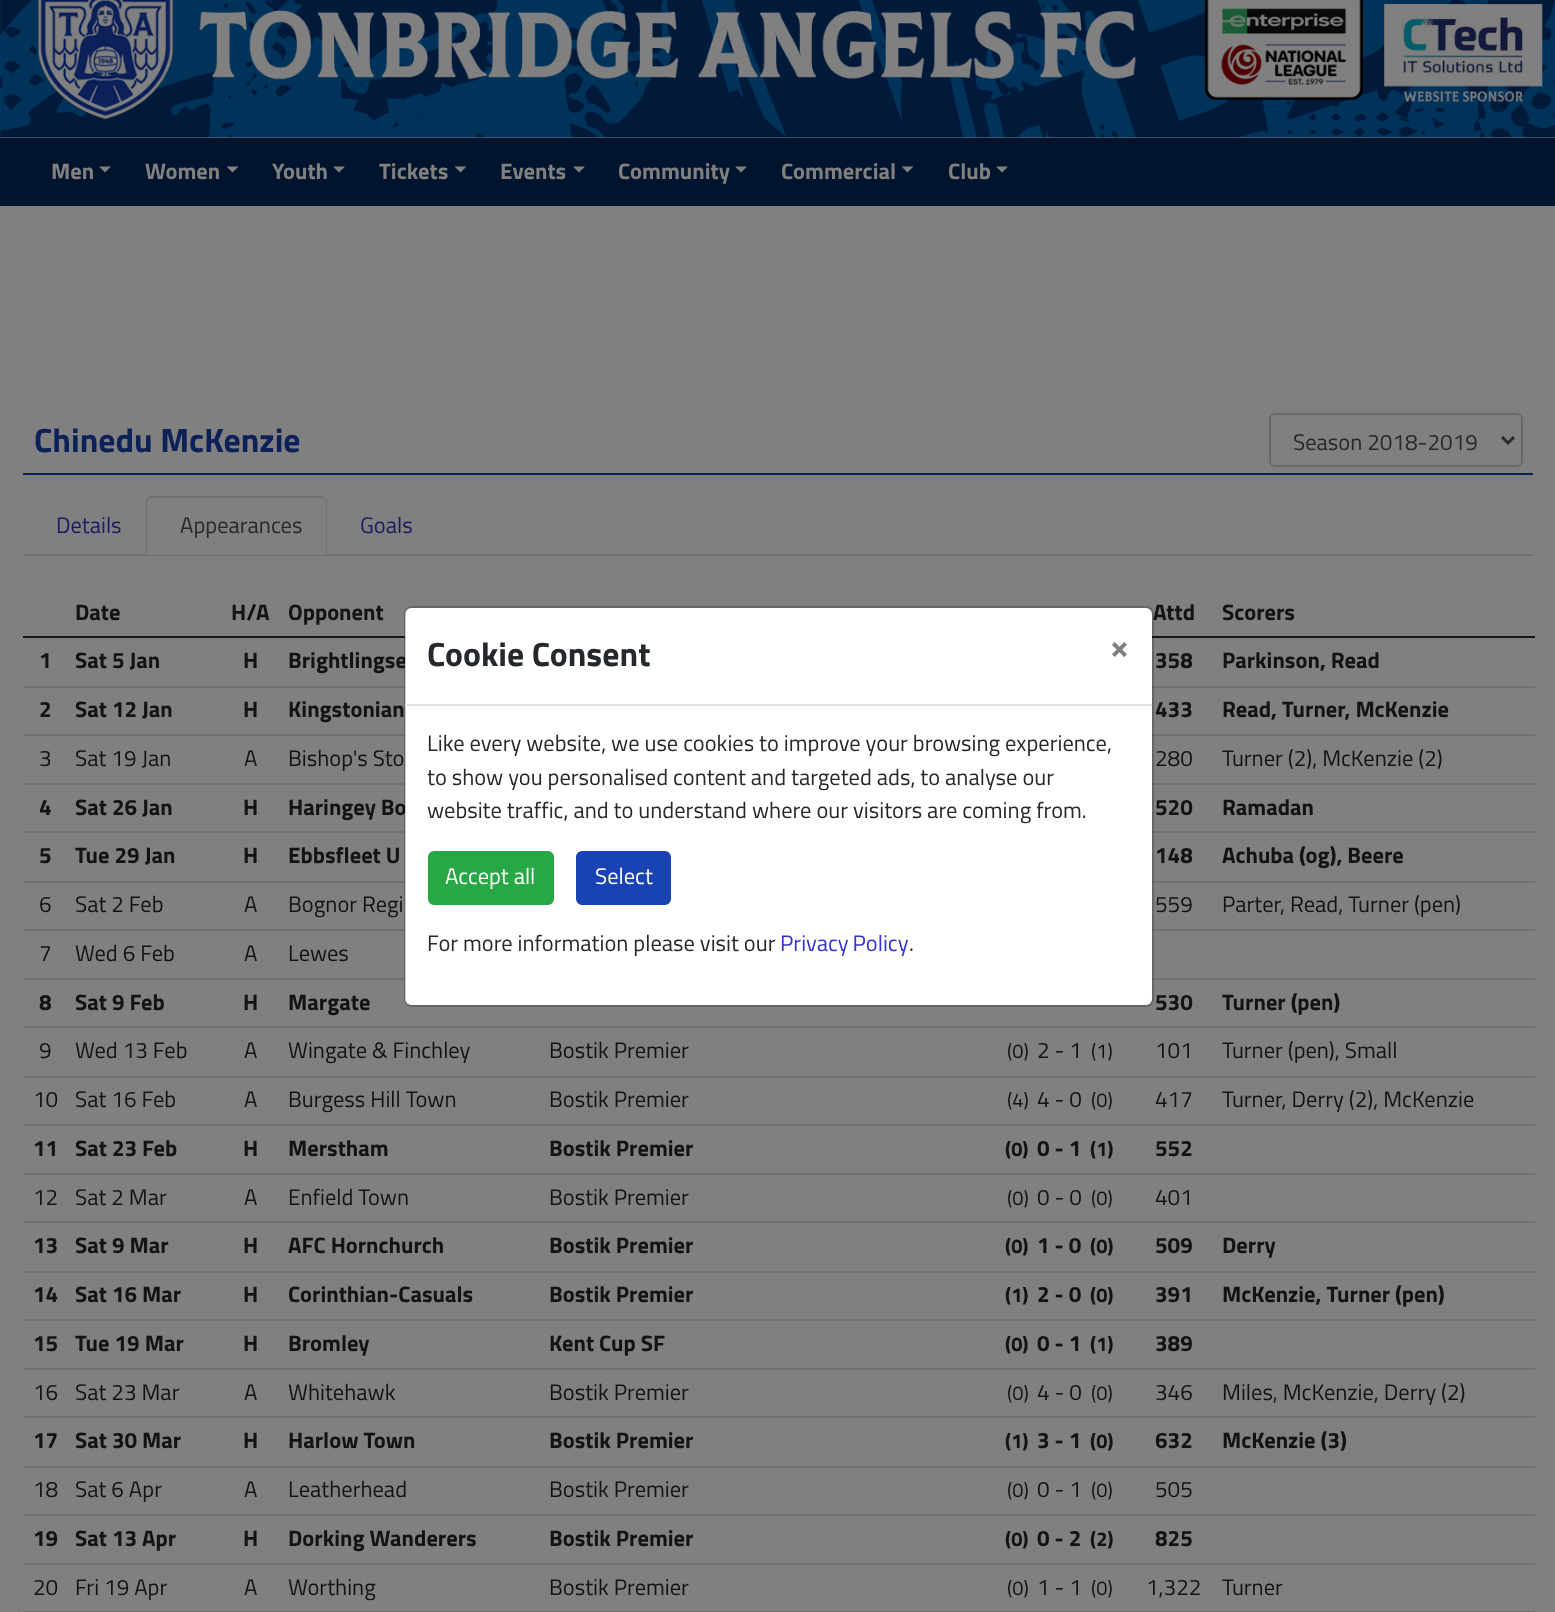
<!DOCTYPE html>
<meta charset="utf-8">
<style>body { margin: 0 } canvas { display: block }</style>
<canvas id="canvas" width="1555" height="1612"></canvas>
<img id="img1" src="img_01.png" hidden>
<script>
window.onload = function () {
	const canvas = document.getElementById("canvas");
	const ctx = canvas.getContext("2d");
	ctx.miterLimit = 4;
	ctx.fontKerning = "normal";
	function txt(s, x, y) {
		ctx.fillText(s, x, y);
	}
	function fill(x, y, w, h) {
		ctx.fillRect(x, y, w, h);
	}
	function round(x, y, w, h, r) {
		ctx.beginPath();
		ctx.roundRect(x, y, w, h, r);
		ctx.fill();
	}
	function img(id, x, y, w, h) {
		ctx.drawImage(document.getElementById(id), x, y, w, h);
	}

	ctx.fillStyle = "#808080";
	fill(0, 0, 1555, 1612);
	img("img1", 0, 0, 1555, 138);
	ctx.fillStyle = "#00142D";
	fill(0, 138, 1555, 68);
	ctx.fillStyle = "#808080";
	ctx.beginPath();
	ctx.moveTo(99, 166.5);
	ctx.lineTo(111, 166.5);
	ctx.lineTo(105, 172.5);
	ctx.closePath();
	ctx.fill();
	ctx.beginPath();
	ctx.moveTo(226.5, 166.5);
	ctx.lineTo(238.5, 166.5);
	ctx.lineTo(232.5, 172.5);
	ctx.closePath();
	ctx.fill();
	ctx.beginPath();
	ctx.moveTo(333, 166.5);
	ctx.lineTo(345, 166.5);
	ctx.lineTo(339, 172.5);
	ctx.closePath();
	ctx.fill();
	ctx.beginPath();
	ctx.moveTo(454.5, 166.5);
	ctx.lineTo(466.5, 166.5);
	ctx.lineTo(460.5, 172.5);
	ctx.closePath();
	ctx.fill();
	ctx.beginPath();
	ctx.moveTo(573, 166.5);
	ctx.lineTo(585, 166.5);
	ctx.lineTo(579, 172.5);
	ctx.closePath();
	ctx.fill();
	ctx.beginPath();
	ctx.moveTo(735, 166.5);
	ctx.lineTo(747, 166.5);
	ctx.lineTo(741, 172.5);
	ctx.closePath();
	ctx.fill();
	ctx.beginPath();
	ctx.moveTo(901.5, 166.5);
	ctx.lineTo(913.5, 166.5);
	ctx.lineTo(907.5, 172.5);
	ctx.closePath();
	ctx.fill();
	ctx.beginPath();
	ctx.moveTo(996, 166.5);
	ctx.lineTo(1008, 166.5);
	ctx.lineTo(1002, 172.5);
	ctx.closePath();
	ctx.fill();
	ctx.fillStyle = "#0D2159";
	fill(23, 473, 1510, 2);
	ctx.beginPath();
	ctx.roundRect(1270, 414, 252, 52, 5);
	ctx.strokeStyle = "#676A6D";
	ctx.lineWidth = 2;
	ctx.stroke();
	ctx.beginPath();
	ctx.moveTo(1502, 437);
	ctx.lineTo(1508, 443);
	ctx.lineTo(1514, 437);
	ctx.strokeStyle = "#25282C";
	ctx.lineWidth = 3;
	ctx.stroke();
	ctx.fillStyle = "#6F7173";
	fill(23, 554, 1510, 2);
	ctx.fillStyle = "#808080";
	ctx.beginPath();
	ctx.roundRect(146, 497, 181, 58, [6, 6, 0, 0]);
	ctx.fill();
	ctx.fillStyle = "#6F7173";
	ctx.beginPath();
	ctx.moveTo(151, 498);
	ctx.lineTo(148, 499);
	ctx.lineTo(147, 498);
	ctx.lineTo(149, 496);
	ctx.lineTo(323, 496);
	ctx.lineTo(325, 498);
	ctx.lineTo(324, 499);
	ctx.lineTo(321, 498);
	ctx.closePath();
	ctx.fill();
	ctx.beginPath();
	ctx.moveTo(327, 555);
	ctx.lineTo(327, 502);
	ctx.bezierCurveTo(327, 501, 326, 499, 325, 498);
	ctx.lineTo(324, 499);
	ctx.lineTo(326, 501);
	ctx.lineTo(326, 554);
	ctx.closePath();
	ctx.fill();
	ctx.fillStyle = "#808080";
	ctx.beginPath();
	ctx.moveTo(327, 555);
	ctx.lineTo(326, 554);
	ctx.lineTo(147, 554);
	ctx.lineTo(146, 555);
	ctx.closePath();
	ctx.fill();
	ctx.fillStyle = "#6F7173";
	ctx.beginPath();
	ctx.moveTo(146, 554);
	ctx.lineTo(146, 502);
	ctx.bezierCurveTo(146, 501, 146, 499, 147, 498);
	ctx.lineTo(148, 499);
	ctx.lineTo(147, 502);
	ctx.lineTo(147, 554);
	ctx.closePath();
	ctx.fill();
	ctx.fillStyle = "#151616";
	fill(23, 636, 382, 2);
	fill(1152, 636, 383, 2);
	ctx.fillStyle = "#6F7173";
	fill(23, 686, 382, 2);
	fill(1152, 686, 383, 2);
	fill(23, 734, 382, 2);
	fill(1152, 734, 383, 2);
	fill(23, 783, 382, 2);
	fill(1152, 783, 383, 2);
	fill(23, 831, 382, 2);
	fill(1152, 831, 383, 2);
	fill(23, 881, 382, 2);
	fill(1152, 881, 383, 2);
	fill(1152, 929, 383, 2);
	fill(23, 929, 382, 2);
	fill(23, 978, 382, 2);
	fill(1152, 978, 383, 2);
	fill(23, 1026, 1512, 2);
	fill(23, 1076, 1512, 2);
	fill(23, 1124, 1512, 2);
	fill(23, 1173, 1512, 2);
	fill(23, 1221, 1512, 2);
	fill(23, 1271, 1512, 2);
	fill(23, 1319, 1512, 2);
	fill(23, 1368, 1512, 2);
	fill(23, 1416, 1512, 2);
	fill(23, 1466, 1512, 2);
	fill(23, 1514, 1512, 2);
	fill(23, 1563, 1512, 2);
	fill(23, 1611, 1512, 1);
	ctx.font = "bold 22.5px Titillium Web";
	ctx.fillStyle = "#808080";
	txt("Men", 51, 179);
	txt("Women", 145, 179);
	txt("Youth", 272, 179);
	txt("Tickets", 379, 179);
	txt("Events", 500, 179);
	txt("Community", 618, 179);
	txt("Commercial", 781, 179);
	txt("Club", 948, 179);
	ctx.font = "bold 33.75px Titillium Web";
	ctx.fillStyle = "#0D2159";
	txt("Chinedu McKenzie", 34, 452);
	ctx.font = "22.5px Titillium Web";
	ctx.fillStyle = "#25282C";
	txt("Season 2018-2019", 1293, 450);
	ctx.fillStyle = "#1A1A66";
	txt("Details", 56, 533);
	ctx.fillStyle = "#25282C";
	txt("Appearances", 180, 533);
	ctx.fillStyle = "#1A1A66";
	txt("Goals", 360, 533);
	ctx.font = "bold 22.5px Titillium Web";
	ctx.fillStyle = "#111315";
	txt("Date", 75, 620);
	txt("H/A", 231, 620);
	txt("Opponent", 288, 620);
	txt("Attd", 1153, 620);
	txt("Scorers", 1222, 620);
	txt("1", 39, 668);
	txt("Sat 5 Jan", 75, 668);
	txt("H", 243, 668);
	txt("Brightlingse", 288, 668);
	txt("358", 1155, 668);
	txt("Parkinson, Read", 1222, 668);
	txt("2", 39, 717);
	txt("Sat 12 Jan", 75, 717);
	txt("H", 243, 717);
	txt("Kingstonian", 288, 717);
	txt("433", 1155, 717);
	txt("Read, Turner, McKenzie", 1222, 717);
	ctx.font = "22.5px Titillium Web";
	txt("3", 39, 766);
	txt("Sat 19 Jan", 75, 766);
	txt("A", 244, 766);
	txt("Bishop's Sto", 288, 766);
	txt("280", 1155, 766);
	txt("Turner (2), McKenzie (2)", 1222, 766);
	ctx.font = "bold 22.5px Titillium Web";
	txt("4", 39, 815);
	txt("Sat 26 Jan", 75, 815);
	txt("H", 243, 815);
	txt("Haringey Bo", 288, 815);
	txt("520", 1155, 815);
	txt("Ramadan", 1222, 815);
	txt("5", 39, 863);
	txt("Tue 29 Jan", 75, 863);
	txt("H", 243, 863);
	txt("Ebbsfleet U", 288, 863);
	txt("148", 1155, 863);
	txt("Achuba (og), Beere", 1222, 863);
	ctx.font = "22.5px Titillium Web";
	txt("6", 39, 912);
	txt("Sat 2 Feb", 75, 912);
	txt("A", 244, 912);
	txt("Bognor Regi", 288, 912);
	txt("559", 1155, 912);
	txt("Parter, Read, Turner (pen)", 1222, 912);
	txt("7", 39, 961);
	txt("Wed 6 Feb", 75, 961);
	txt("A", 244, 961);
	txt("Lewes", 288, 961);
	ctx.font = "bold 22.5px Titillium Web";
	txt("8", 39, 1010);
	txt("Sat 9 Feb", 75, 1010);
	txt("H", 243, 1010);
	txt("Margate", 288, 1010);
	txt("530", 1155, 1010);
	txt("Turner (pen)", 1222, 1010);
	ctx.font = "22.5px Titillium Web";
	txt("9", 39, 1058);
	txt("Wed 13 Feb", 75, 1058);
	txt("A", 244, 1058);
	txt("Wingate & Finchley", 288, 1058);
	txt("Bostik Premier", 549, 1058);
	ctx.font = "20px Titillium Web";
	txt("(0)", 1007, 1058);
	ctx.font = "22.5px Titillium Web";
	txt("2 - 1", 1037, 1058);
	ctx.font = "20px Titillium Web";
	txt("(1)", 1091, 1058);
	ctx.font = "22.5px Titillium Web";
	txt("101", 1155, 1058);
	txt("Turner (pen), Small", 1222, 1058);
	txt("10", 33, 1107);
	txt("Sat 16 Feb", 75, 1107);
	txt("A", 244, 1107);
	txt("Burgess Hill Town", 288, 1107);
	txt("Bostik Premier", 549, 1107);
	ctx.font = "20px Titillium Web";
	txt("(4)", 1007, 1107);
	ctx.font = "22.5px Titillium Web";
	txt("4 - 0", 1037, 1107);
	ctx.font = "20px Titillium Web";
	txt("(0)", 1091, 1107);
	ctx.font = "22.5px Titillium Web";
	txt("417", 1155, 1107);
	txt("Turner, Derry (2), McKenzie", 1222, 1107);
	ctx.font = "bold 22.5px Titillium Web";
	txt("11", 33, 1156);
	txt("Sat 23 Feb", 75, 1156);
	txt("H", 243, 1156);
	txt("Merstham", 288, 1156);
	txt("Bostik Premier", 549, 1156);
	ctx.font = "bold 20px Titillium Web";
	txt("(0)", 1005, 1156);
	ctx.font = "bold 22.5px Titillium Web";
	txt("0 - 1", 1037, 1156);
	ctx.font = "bold 20px Titillium Web";
	txt("(1)", 1090, 1156);
	ctx.font = "bold 22.5px Titillium Web";
	txt("552", 1155, 1156);
	ctx.font = "22.5px Titillium Web";
	txt("12", 33, 1205);
	txt("Sat 2 Mar", 75, 1205);
	txt("A", 244, 1205);
	txt("Enfield Town", 288, 1205);
	txt("Bostik Premier", 549, 1205);
	ctx.font = "20px Titillium Web";
	txt("(0)", 1007, 1205);
	ctx.font = "22.5px Titillium Web";
	txt("0 - 0", 1037, 1205);
	ctx.font = "20px Titillium Web";
	txt("(0)", 1091, 1205);
	ctx.font = "22.5px Titillium Web";
	txt("401", 1155, 1205);
	ctx.font = "bold 22.5px Titillium Web";
	txt("13", 33, 1253);
	txt("Sat 9 Mar", 75, 1253);
	txt("H", 243, 1253);
	txt("AFC Hornchurch", 288, 1253);
	txt("Bostik Premier", 549, 1253);
	ctx.font = "bold 20px Titillium Web";
	txt("(0)", 1005, 1253);
	ctx.font = "bold 22.5px Titillium Web";
	txt("1 - 0", 1037, 1253);
	ctx.font = "bold 20px Titillium Web";
	txt("(0)", 1090, 1253);
	ctx.font = "bold 22.5px Titillium Web";
	txt("509", 1155, 1253);
	txt("Derry", 1222, 1253);
	txt("14", 33, 1302);
	txt("Sat 16 Mar", 75, 1302);
	txt("H", 243, 1302);
	txt("Corinthian-Casuals", 288, 1302);
	txt("Bostik Premier", 549, 1302);
	ctx.font = "bold 20px Titillium Web";
	txt("(1)", 1005, 1302);
	ctx.font = "bold 22.5px Titillium Web";
	txt("2 - 0", 1037, 1302);
	ctx.font = "bold 20px Titillium Web";
	txt("(0)", 1090, 1302);
	ctx.font = "bold 22.5px Titillium Web";
	txt("391", 1155, 1302);
	txt("McKenzie, Turner (pen)", 1222, 1302);
	txt("15", 33, 1351);
	txt("Tue 19 Mar", 75, 1351);
	txt("H", 243, 1351);
	txt("Bromley", 288, 1351);
	txt("Kent Cup SF", 549, 1351);
	ctx.font = "bold 20px Titillium Web";
	txt("(0)", 1005, 1351);
	ctx.font = "bold 22.5px Titillium Web";
	txt("0 - 1", 1037, 1351);
	ctx.font = "bold 20px Titillium Web";
	txt("(1)", 1090, 1351);
	ctx.font = "bold 22.5px Titillium Web";
	txt("389", 1155, 1351);
	ctx.font = "22.5px Titillium Web";
	txt("16", 33, 1400);
	txt("Sat 23 Mar", 75, 1400);
	txt("A", 244, 1400);
	txt("Whitehawk", 288, 1400);
	txt("Bostik Premier", 549, 1400);
	ctx.font = "20px Titillium Web";
	txt("(0)", 1007, 1400);
	ctx.font = "22.5px Titillium Web";
	txt("4 - 0", 1037, 1400);
	ctx.font = "20px Titillium Web";
	txt("(0)", 1091, 1400);
	ctx.font = "22.5px Titillium Web";
	txt("346", 1155, 1400);
	txt("Miles, McKenzie, Derry (2)", 1222, 1400);
	ctx.font = "bold 22.5px Titillium Web";
	txt("17", 33, 1448);
	txt("Sat 30 Mar", 75, 1448);
	txt("H", 243, 1448);
	txt("Harlow Town", 288, 1448);
	txt("Bostik Premier", 549, 1448);
	ctx.font = "bold 20px Titillium Web";
	txt("(1)", 1005, 1448);
	ctx.font = "bold 22.5px Titillium Web";
	txt("3 - 1", 1037, 1448);
	ctx.font = "bold 20px Titillium Web";
	txt("(0)", 1090, 1448);
	ctx.font = "bold 22.5px Titillium Web";
	txt("632", 1155, 1448);
	txt("McKenzie (3)", 1222, 1448);
	ctx.font = "22.5px Titillium Web";
	txt("18", 33, 1497);
	txt("Sat 6 Apr", 75, 1497);
	txt("A", 244, 1497);
	txt("Leatherhead", 288, 1497);
	txt("Bostik Premier", 549, 1497);
	ctx.font = "20px Titillium Web";
	txt("(0)", 1007, 1497);
	ctx.font = "22.5px Titillium Web";
	txt("0 - 1", 1037, 1497);
	ctx.font = "20px Titillium Web";
	txt("(0)", 1091, 1497);
	ctx.font = "22.5px Titillium Web";
	txt("505", 1155, 1497);
	ctx.font = "bold 22.5px Titillium Web";
	txt("19", 33, 1546);
	txt("Sat 13 Apr", 75, 1546);
	txt("H", 243, 1546);
	txt("Dorking Wanderers", 288, 1546);
	txt("Bostik Premier", 549, 1546);
	ctx.font = "bold 20px Titillium Web";
	txt("(0)", 1005, 1546);
	ctx.font = "bold 22.5px Titillium Web";
	txt("0 - 2", 1037, 1546);
	ctx.font = "bold 20px Titillium Web";
	txt("(2)", 1090, 1546);
	ctx.font = "bold 22.5px Titillium Web";
	txt("825", 1155, 1546);
	ctx.font = "22.5px Titillium Web";
	txt("20", 33, 1595);
	txt("Fri 19 Apr", 75, 1595);
	txt("A", 244, 1595);
	txt("Worthing", 288, 1595);
	txt("Bostik Premier", 549, 1595);
	ctx.font = "20px Titillium Web";
	txt("(0)", 1007, 1595);
	ctx.font = "22.5px Titillium Web";
	txt("1 - 1", 1037, 1595);
	ctx.font = "20px Titillium Web";
	txt("(0)", 1091, 1595);
	ctx.font = "22.5px Titillium Web";
	txt("1,322", 1146, 1595);
	txt("Turner", 1222, 1595);
	ctx.fillStyle = "#FFFFFF";
	round(405, 608, 747, 397, 6);
	ctx.beginPath();
	ctx.roundRect(405, 607, 748, 399, 7);
	ctx.strokeStyle = "rgba(0, 0, 0, 0.2)";
	ctx.lineWidth = 2;
	ctx.stroke();
	ctx.fillStyle = "#DEE2E6";
	fill(405, 704, 747, 2);
	ctx.font = "bold 33.75px Titillium Web";
	ctx.fillStyle = "#25282C";
	txt("Cookie Consent", 427, 666);
	ctx.fillStyle = "#808080";
	txt("×", 1110, 658);
	ctx.font = "22.5px Titillium Web";
	ctx.fillStyle = "#25282C";
	txt("Like every website, we use cookies to improve your browsing experience,", 427, 751);
	txt("to show you personalised content and targeted ads, to analyse our", 427, 785);
	txt("website traffic, and to understand where our visitors are coming from.", 427, 818);
	ctx.fillStyle = "#28A745";
	ctx.beginPath();
	ctx.roundRect(429, 852, 124, 52, 5);
	ctx.fill();
	ctx.strokeStyle = "#28A745";
	ctx.stroke();
	ctx.fillStyle = "#FFFFFF";
	txt("Accept all", 445, 884);
	ctx.fillStyle = "#1942B2";
	ctx.beginPath();
	ctx.roundRect(577, 852, 93, 52, 5);
	ctx.fill();
	ctx.strokeStyle = "#1942B2";
	ctx.stroke();
	ctx.fillStyle = "#FFFFFF";
	txt("Select", 595, 884);
	ctx.fillStyle = "#25282C";
	txt("For more information please visit our", 427, 951);
	ctx.wordSpacing = "-1px";
	ctx.fillStyle = "#3333CC";
	txt("Privacy Policy", 780, 951);
	ctx.wordSpacing = "0px";
	ctx.fillStyle = "#25282C";
	txt(".", 909, 951);
};
</script>
